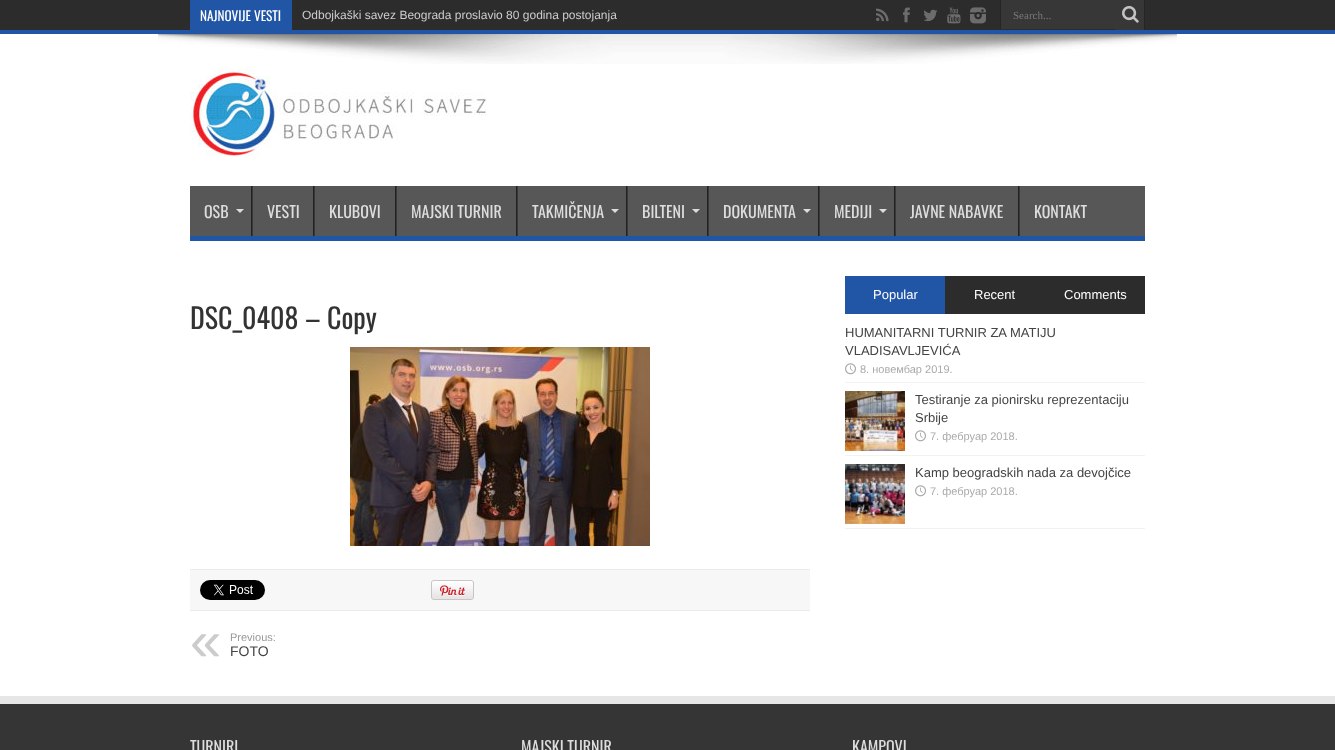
<!DOCTYPE html>
<meta charset="utf-8">
<style>body { margin: 0 } canvas { display: block }</style>
<canvas id="canvas" width="1335" height="750"></canvas>
<img id="img1" src="img_01.png" hidden>
<img id="img2" src="img_02.png" hidden>
<img id="img3" src="img_03.png" hidden>
<img id="img4" src="img_04.png" hidden>
<img id="img5" src="img_05.png" hidden>
<img id="img6" src="img_06.png" hidden>
<img id="img7" src="img_07.png" hidden>
<img id="img8" src="img_08.png" hidden>
<img id="img9" src="img_09.png" hidden>
<img id="img10" src="img_10.png" hidden>
<img id="img11" src="img_11.png" hidden>
<img id="img12" src="img_12.png" hidden>
<img id="img13" src="img_13.png" hidden>
<img id="img14" src="img_14.png" hidden>
<script>
window.onload = function () {
	const canvas = document.getElementById("canvas");
	const ctx = canvas.getContext("2d");
	ctx.miterLimit = 4;
	ctx.fontKerning = "normal";
	function txt(s, x, y) {
		ctx.fillText(s, x, y);
	}
	function fill(x, y, w, h) {
		ctx.fillRect(x, y, w, h);
	}
	function img(id, x, y, w, h) {
		ctx.drawImage(document.getElementById(id), x, y, w, h);
	}

	ctx.fillStyle = "#FFFFFF";
	fill(0, 0, 1335, 750);
	ctx.fillStyle = "#2C2C2C";
	fill(0, 0, 1335, 30);
	ctx.fillStyle = "#2155A6";
	fill(0, 30, 1335, 4);
	fill(190, 0, 102, 30);
	img("img1", 876, 8, 13, 14);
	img("img2", 903, 7, 7, 16);
	img("img3", 923, 9, 15, 13);
	img("img4", 947, 7, 14, 17);
	img("img5", 970, 7, 16, 17);
	ctx.fillStyle = "#373737";
	fill(1001, 0, 114, 29);
	ctx.fillStyle = "#252525";
	fill(1000, 0, 1, 29);
	ctx.fillStyle = "#373737";
	fill(1115, 0, 29, 30);
	ctx.fillStyle = "#252525";
	fill(1144, 0, 1, 30);
	img("img6", 1122, 6, 17, 17);
	img("img7", 158, 34, 1019, 30);
	img("img8", 190, 68, 296, 88);
	ctx.fillStyle = "#575757";
	fill(190, 186, 955, 50);
	ctx.fillStyle = "#2155A6";
	fill(190, 236, 955, 5);
	ctx.fillStyle = "#DDDDDD";
	ctx.beginPath();
	ctx.moveTo(236, 209);
	ctx.lineTo(244, 209);
	ctx.lineTo(240, 213);
	ctx.closePath();
	ctx.fill();
	ctx.fillStyle = "#222222";
	fill(251, 186, 1, 50);
	ctx.fillStyle = "#383838";
	fill(252, 186, 1, 50);
	ctx.fillStyle = "#222222";
	fill(313, 186, 1, 50);
	ctx.fillStyle = "#383838";
	fill(314, 186, 1, 50);
	ctx.fillStyle = "#222222";
	fill(395, 186, 1, 50);
	ctx.fillStyle = "#383838";
	fill(396, 186, 1, 50);
	ctx.fillStyle = "#222222";
	fill(516, 186, 1, 50);
	ctx.fillStyle = "#383838";
	fill(517, 186, 1, 50);
	ctx.fillStyle = "#DDDDDD";
	ctx.beginPath();
	ctx.moveTo(611, 209);
	ctx.lineTo(619, 209);
	ctx.lineTo(615, 213);
	ctx.closePath();
	ctx.fill();
	ctx.fillStyle = "#222222";
	fill(626, 186, 1, 50);
	ctx.fillStyle = "#383838";
	fill(627, 186, 1, 50);
	ctx.fillStyle = "#DDDDDD";
	ctx.beginPath();
	ctx.moveTo(692, 209);
	ctx.lineTo(700, 209);
	ctx.lineTo(696, 213);
	ctx.closePath();
	ctx.fill();
	ctx.fillStyle = "#222222";
	fill(707, 186, 1, 50);
	ctx.fillStyle = "#383838";
	fill(708, 186, 1, 50);
	ctx.fillStyle = "#DDDDDD";
	ctx.beginPath();
	ctx.moveTo(803, 209);
	ctx.lineTo(811, 209);
	ctx.lineTo(807, 213);
	ctx.closePath();
	ctx.fill();
	ctx.fillStyle = "#222222";
	fill(818, 186, 1, 50);
	ctx.fillStyle = "#383838";
	fill(819, 186, 1, 50);
	ctx.fillStyle = "#DDDDDD";
	ctx.beginPath();
	ctx.moveTo(879, 209);
	ctx.lineTo(887, 209);
	ctx.lineTo(883, 213);
	ctx.closePath();
	ctx.fill();
	ctx.fillStyle = "#222222";
	fill(894, 186, 1, 50);
	ctx.fillStyle = "#383838";
	fill(895, 186, 1, 50);
	ctx.fillStyle = "#222222";
	fill(1018, 186, 1, 50);
	ctx.fillStyle = "#383838";
	fill(1019, 186, 1, 50);
	img("img9", 350, 347, 300, 199);
	ctx.fillStyle = "#F7F7F7";
	fill(190, 570, 620, 40);
	ctx.fillStyle = "#EAEAEA";
	fill(190, 569, 620, 1);
	fill(190, 610, 620, 1);
	img("img10", 200, 580, 65, 20);
	img("img11", 431, 580, 43, 20);
	ctx.fillStyle = "#2155A6";
	fill(845, 276, 100, 38);
	ctx.fillStyle = "#2C2C2C";
	fill(945, 276, 200, 38);
	ctx.fillStyle = "#F2F2F2";
	fill(845, 382, 300, 1);
	img("img12", 845, 363, 11, 12);
	fill(845, 455, 300, 1);
	img("img13", 845, 391, 60, 60);
	img("img12", 915, 430, 11, 12);
	fill(845, 528, 300, 1);
	img("img14", 845, 464, 60, 60);
	img("img12", 915, 485, 11, 12);
	ctx.fillStyle = "#E6E6E6";
	fill(0, 696, 1335, 8);
	ctx.fillStyle = "#353535";
	fill(0, 704, 1335, 46);
	ctx.font = "13.25px Oswald";
	ctx.fillStyle = "#FFFFFF";
	txt("NAJNOVIJE VESTI", 200, 21);
	ctx.font = "12px Liberation Sans";
	ctx.fillStyle = "#CCCCCC";
	txt("Odbojkaški savez Beograda proslavio 80 godina postojanja", 302, 19);
	ctx.font = "11px Liberation Serif";
	ctx.fillStyle = "#787878";
	txt("Search...", 1013, 19);
	ctx.font = "16px Oswald";
	ctx.fillStyle = "#DDDDDD";
	txt("OSB", 204, 218);
	txt("VESTI", 267, 218);
	txt("KLUBOVI", 329, 218);
	txt("MAJSKI TURNIR", 411, 218);
	txt("TAKMIČENJA", 532, 218);
	txt("BILTENI", 642, 218);
	txt("DOKUMENTA", 723, 218);
	txt("MEDIJI", 834, 218);
	txt("JAVNE NABAVKE", 910, 218);
	txt("KONTAKT", 1034, 218);
	ctx.font = "28px Oswald";
	ctx.fillStyle = "#333333";
	txt("DSC_0408 – Copy", 190, 329);
	ctx.font = "56px Liberation Sans";
	ctx.fillStyle = "#CCCCCC";
	txt("«", 190, 660);
	ctx.font = "11px Liberation Sans";
	ctx.fillStyle = "#999999";
	txt("Previous:", 230, 641);
	ctx.font = "14px Liberation Sans";
	ctx.fillStyle = "#444444";
	txt("FOTO", 230, 656);
	ctx.font = "13px Liberation Sans";
	ctx.fillStyle = "#FFFFFF";
	txt("Popular", 873, 299);
	txt("Recent", 974, 299);
	txt("Comments", 1064, 299);
	ctx.fillStyle = "#444444";
	txt("HUMANITARNI TURNIR ZA MATIJU", 845, 337);
	txt("VLADISAVLJEVIĆA", 845, 355);
	ctx.font = "11px Liberation Sans";
	ctx.fillStyle = "#AAAAAA";
	txt("8. новембар 2019.", 860, 373);
	ctx.font = "13px Liberation Sans";
	ctx.fillStyle = "#444444";
	txt("Testiranje za pionirsku reprezentaciju", 915, 404);
	txt("Srbije", 915, 422);
	ctx.font = "11px Liberation Sans";
	ctx.fillStyle = "#AAAAAA";
	txt("7. фебруар 2018.", 930, 440);
	ctx.font = "13px Liberation Sans";
	ctx.fillStyle = "#444444";
	txt("Kamp beogradskih nada za devojčice", 915, 477);
	ctx.font = "11px Liberation Sans";
	ctx.fillStyle = "#AAAAAA";
	txt("7. фебруар 2018.", 930, 495);
	ctx.font = "16px Oswald";
	ctx.fillStyle = "#DDDDDD";
	txt("TURNIRI", 190, 753);
	txt("MAJSKI TURNIR", 521, 753);
	txt("KAMPOVI", 852, 753);
};
</script>
